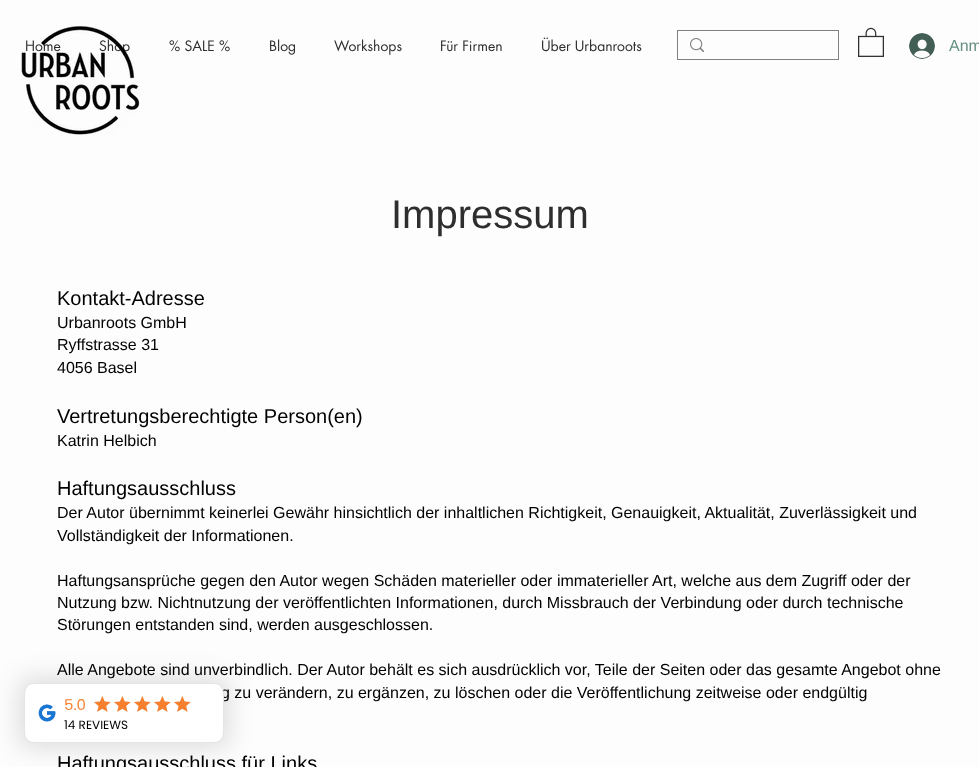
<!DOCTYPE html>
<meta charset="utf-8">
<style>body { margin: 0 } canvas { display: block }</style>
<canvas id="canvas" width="979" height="767"></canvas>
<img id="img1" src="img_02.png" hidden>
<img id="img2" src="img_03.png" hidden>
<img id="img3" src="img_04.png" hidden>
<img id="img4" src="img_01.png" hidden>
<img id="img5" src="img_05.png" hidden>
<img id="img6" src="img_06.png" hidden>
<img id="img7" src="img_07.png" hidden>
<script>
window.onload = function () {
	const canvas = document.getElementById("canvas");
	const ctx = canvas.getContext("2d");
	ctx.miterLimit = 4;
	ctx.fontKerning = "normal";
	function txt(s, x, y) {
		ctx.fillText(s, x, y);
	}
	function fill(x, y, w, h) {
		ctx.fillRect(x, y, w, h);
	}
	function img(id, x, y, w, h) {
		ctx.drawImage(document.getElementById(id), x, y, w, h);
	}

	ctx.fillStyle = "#FEFDFD";
	fill(0, 0, 979, 767);
	ctx.strokeStyle = "#818181";
	ctx.strokeRect(677.5, 30.5, 161, 29);
	img("img1", 690, 38, 14, 14);
	img("img2", 858, 27, 26, 30);
	img("img3", 909, 33, 26, 26);
	ctx.fillStyle = "rgba(0, 0, 0, 0.12)";
	ctx.filter = "blur(12px)";
	ctx.beginPath();
	ctx.roundRect(18, 677, 212, 72, 12);
	ctx.fill();
	ctx.filter = "none";
	ctx.font = "14px futura";
	ctx.fillStyle = "#2E2E2E";
	txt("Home", 25, 51);
	txt("Shop", 99, 51);
	img("img4", 21, 26, 119, 109);
	txt("% SALE %", 169, 51);
	txt("Blog", 269, 51);
	txt("Workshops", 334, 51);
	txt("Für Firmen", 440, 51);
	txt("Über Urbanroots", 541, 51);
	ctx.font = "16px Liberation Sans";
	ctx.fillStyle = "#648F7F";
	txt("Anm", 949, 51);
	ctx.font = "40px Liberation Sans";
	ctx.fillStyle = "#2E2E2E";
	txt("Impressum", 391, 228);
	ctx.font = "20px Liberation Sans";
	ctx.fillStyle = "#000000";
	txt("Kontakt-Adresse", 57, 305);
	ctx.font = "16px Liberation Sans";
	txt("Urbanroots GmbH", 57, 328);
	txt("Ryffstrasse 31", 57, 350);
	txt("4056 Basel", 57, 373);
	ctx.font = "20px Liberation Sans";
	txt("Vertretungsberechtigte Person(en)", 57, 423);
	ctx.font = "16px Liberation Sans";
	txt("Katrin Helbich", 57, 446);
	ctx.font = "20px Liberation Sans";
	txt("Haftungsausschluss", 57, 495);
	ctx.font = "16px Liberation Sans";
	txt("Der Autor übernimmt keinerlei Gewähr hinsichtlich der inhaltlichen Richtigkeit, Genauigkeit, Aktualität, Zuverlässigkeit und", 57, 518);
	txt("Vollständigkeit der Informationen.", 57, 541);
	txt("Haftungsansprüche gegen den Autor wegen Schäden materieller oder immaterieller Art, welche aus dem Zugriff oder der", 57, 586);
	txt("Nutzung bzw. Nichtnutzung der veröffentlichten Informationen, durch Missbrauch der Verbindung oder durch technische", 57, 608);
	txt("Störungen entstanden sind, werden ausgeschlossen.", 57, 630);
	txt("Alle Angebote sind unverbindlich. Der Autor behält es sich ausdrücklich vor, Teile der Seiten oder das gesamte Angebot ohne", 57, 675);
	txt("g zu verändern, zu ergänzen, zu löschen oder die Veröffentlichung zeitweise oder endgültig", 221, 698);
	ctx.font = "20px Liberation Sans";
	txt("Haftungsausschluss für Links", 57, 770);
	ctx.fillStyle = "#FFFFFF";
	ctx.beginPath();
	ctx.roundRect(24.5, 683.5, 199, 59, 9.5);
	ctx.fill();
	ctx.strokeStyle = "#E5E5E5";
	ctx.stroke();
	img("img5", 38, 704, 18, 18);
	ctx.font = "15px Poppins";
	ctx.fillStyle = "#F7802F";
	txt("5.0", 64, 710);
	img("img6", 94, 696, 17, 16);
	img("img7", 94, 696, 17, 16);
	img("img6", 114, 696, 17, 16);
	img("img7", 114, 696, 17, 16);
	img("img6", 134, 696, 17, 16);
	img("img7", 134, 696, 17, 16);
	img("img6", 154, 696, 17, 16);
	img("img7", 154, 696, 17, 16);
	img("img6", 174, 696, 17, 16);
	img("img7", 174, 696, 17, 16);
	ctx.font = "12px Poppins";
	ctx.fillStyle = "#000000";
	txt("14 REVIEWS", 64, 729);
};
</script>
